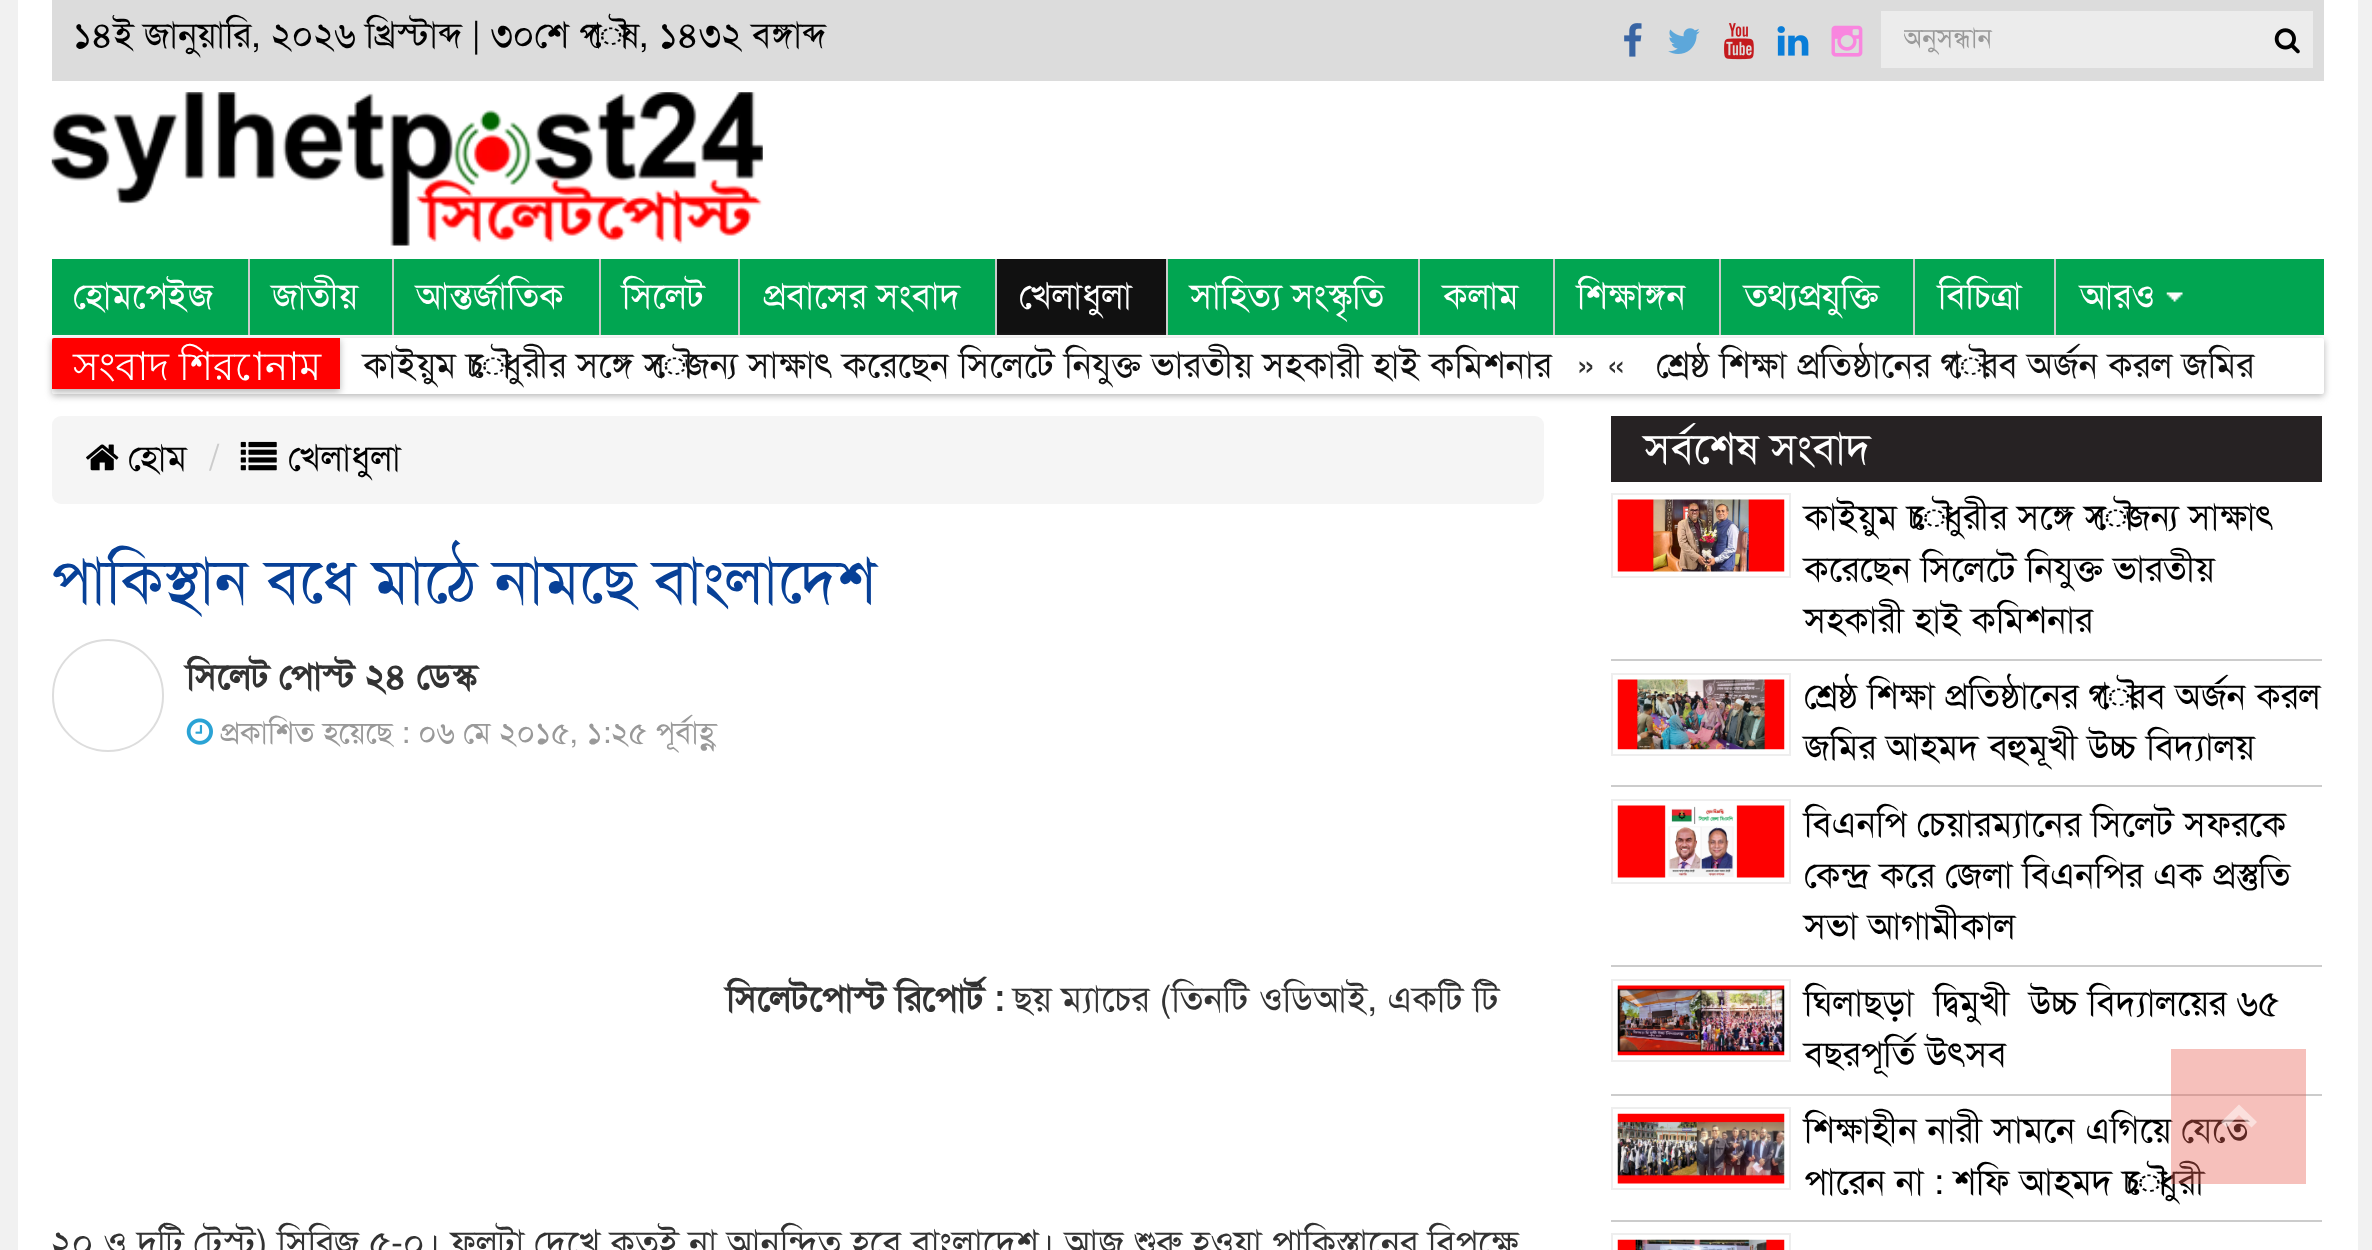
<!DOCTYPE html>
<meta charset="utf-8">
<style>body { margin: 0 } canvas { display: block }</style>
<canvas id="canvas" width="2372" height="1250"></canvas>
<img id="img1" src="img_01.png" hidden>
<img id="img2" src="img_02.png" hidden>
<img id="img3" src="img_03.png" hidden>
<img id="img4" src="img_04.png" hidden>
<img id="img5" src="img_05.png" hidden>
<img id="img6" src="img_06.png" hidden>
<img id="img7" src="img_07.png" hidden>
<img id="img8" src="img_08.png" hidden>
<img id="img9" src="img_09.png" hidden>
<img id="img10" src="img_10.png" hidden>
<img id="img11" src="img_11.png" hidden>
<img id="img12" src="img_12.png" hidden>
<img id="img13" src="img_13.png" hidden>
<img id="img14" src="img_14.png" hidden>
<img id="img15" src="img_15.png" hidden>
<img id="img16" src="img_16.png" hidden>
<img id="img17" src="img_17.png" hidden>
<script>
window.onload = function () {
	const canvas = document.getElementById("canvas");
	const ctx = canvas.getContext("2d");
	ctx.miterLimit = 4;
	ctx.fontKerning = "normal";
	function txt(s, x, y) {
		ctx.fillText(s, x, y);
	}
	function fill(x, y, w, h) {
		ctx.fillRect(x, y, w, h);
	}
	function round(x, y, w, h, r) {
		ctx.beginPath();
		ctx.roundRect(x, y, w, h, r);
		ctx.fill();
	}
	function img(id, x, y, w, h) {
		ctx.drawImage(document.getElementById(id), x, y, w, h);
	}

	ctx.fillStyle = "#F1F1F1";
	fill(0, 0, 2372, 1250);
	ctx.fillStyle = "#FFFFFF";
	fill(18, 0, 2340, 1250);
	ctx.fillStyle = "#DCDCDC";
	fill(52, 0, 2272, 81);
	img("img1", 1624, 23, 18, 34);
	img("img2", 1668, 28, 32, 26);
	img("img3", 1724, 23, 30, 37);
	img("img4", 1777, 26, 32, 30);
	img("img5", 1831, 25, 32, 32);
	ctx.fillStyle = "#ECECEC";
	fill(1881, 11, 432, 57);
	img("img6", 2274, 28, 26, 26);
	img("img7", 51, 92, 712, 154);
	ctx.fillStyle = "#01A551";
	fill(52, 259, 2272, 76);
	ctx.fillStyle = "#CCCCCC";
	fill(248, 259, 2, 76);
	fill(392, 259, 2, 76);
	fill(599, 259, 2, 76);
	fill(738, 259, 2, 76);
	fill(995, 259, 2, 76);
	ctx.fillStyle = "#111111";
	fill(997, 259, 169, 76);
	ctx.fillStyle = "#CCCCCC";
	fill(1166, 259, 2, 76);
	fill(1418, 259, 2, 76);
	fill(1553, 259, 2, 76);
	fill(1719, 259, 2, 76);
	fill(1913, 259, 2, 76);
	fill(2054, 259, 2, 76);
	img("img8", 2166, 292, 17, 10);
	ctx.fillStyle = "#B5B5B5";
	ctx.filter = "blur(3.5px)";
	ctx.beginPath();
	ctx.roundRect(52, 340, 2272, 56, 2);
	ctx.fill();
	ctx.filter = "none";
	ctx.fillStyle = "#FFFFFF";
	round(52, 338, 2272, 56, 2);
	ctx.save();
	ctx.beginPath();
	ctx.roundRect(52, 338, 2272, 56, 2);
	ctx.clip();
	ctx.fillStyle = "#B5B5B5";
	ctx.filter = "blur(3.5px)";
	ctx.beginPath();
	ctx.rect(52, 340, 288, 52);
	ctx.fill();
	ctx.filter = "none";
	ctx.restore();
	ctx.fillStyle = "#FF0000";
	ctx.beginPath();
	ctx.roundRect(52, 338, 288, 51, [2, 0, 0, 0]);
	ctx.fill();
	ctx.fillStyle = "#F5F5F5";
	round(52, 416, 1492, 88, 9);
	img("img9", 86, 444, 33, 27);
	img("img10", 240, 441, 37, 30);
	ctx.beginPath();
	ctx.roundRect(53, 640, 110, 111, 55);
	ctx.strokeStyle = "#DDDDDD";
	ctx.lineWidth = 2;
	ctx.stroke();
	img("img11", 186, 718, 27, 27);
	ctx.fillStyle = "#262223";
	fill(1611, 416, 711, 66);
	ctx.fillStyle = "#CCCCCC";
	fill(1611, 659, 711, 2);
	ctx.strokeStyle = "#EEEEEE";
	ctx.strokeRect(1612, 494, 178, 83);
	img("img12", 1617, 499, 168, 73);
	fill(1611, 785, 711, 2);
	ctx.strokeRect(1612, 674, 178, 81);
	img("img13", 1617, 679, 168, 71);
	fill(1611, 965, 711, 2);
	ctx.strokeRect(1612, 800, 178, 83);
	img("img14", 1617, 805, 168, 73);
	fill(1611, 1094, 711, 2);
	ctx.strokeRect(1612, 980, 178, 81);
	img("img15", 1617, 985, 168, 71);
	fill(1611, 1220, 711, 2);
	ctx.strokeRect(1612, 1108, 178, 81);
	img("img16", 1617, 1113, 168, 71);
	ctx.strokeRect(1612, 1234, 178, 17);
	img("img17", 1617, 1239, 168, 11);
	ctx.font = "36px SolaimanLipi";
	ctx.fillStyle = "#000000";
	txt("১৪ই জানুয়ারি, ২০২৬ খ্রিস্টাব্দ | ৩০শে পৌষ, ১৪৩২ বঙ্গাব্দ", 73, 47);
	ctx.save();
	ctx.beginPath();
	ctx.rect(1904, 23, 351, 33);
	ctx.clip();
	ctx.font = "27px SolaimanLipi";
	ctx.fillStyle = "#999999";
	txt("অনুসন্ধান", 1903, 47);
	ctx.restore();
	ctx.fillStyle = "#FFFFFF";
	txt("হোমপেইজ", 73, 308);
	txt("জাতীয়", 272, 308);
	txt("আন্তর্জাতিক", 416, 308);
	txt("সিলেট", 622, 308);
	txt("প্রবাসের সংবাদ", 763, 308);
	txt("খেলাধুলা", 1019, 308);
	txt("সাহিত্য সংস্কৃতি", 1190, 308);
	txt("কলাম", 1443, 308);
	txt("শিক্ষাঙ্গন", 1577, 308);
	txt("তথ্যপ্রযুক্তি", 1744, 308);
	txt("বিচিত্রা", 1938, 308);
	txt("আরও", 2080, 308);
	ctx.wordSpacing = "-1px";
	ctx.font = "39px Lohit Bengali";
	txt("সংবাদ শিরোনাম", 73, 380);
	ctx.wordSpacing = "0px";
	ctx.font = "36px SolaimanLipi";
	ctx.fillStyle = "#111111";
	txt("কাইয়ুম চৌধুরীর সঙ্গে সৌজন্য সাক্ষাৎ করেছেন সিলেটে নিযুক্ত ভারতীয় সহকারী হাই কমিশনার", 363, 377);
	ctx.fillStyle = "#333333";
	txt("» «", 1576, 377);
	ctx.fillStyle = "#111111";
	txt("শ্রেষ্ঠ শিক্ষা প্রতিষ্ঠানের গৌরব অর্জন করল জমির", 1656, 377);
	ctx.fillStyle = "#000000";
	txt("হোম", 128, 470);
	ctx.fillStyle = "#CCCCCC";
	txt("/", 208, 470);
	ctx.fillStyle = "#000000";
	txt("খেলাধুলা", 288, 470);
	ctx.font = "63px SolaimanLipi";
	ctx.fillStyle = "#074097";
	txt("পাকিস্থান বধে মাঠে নামছে বাংলাদেশ", 51, 602);
	ctx.font = "bold 36px SolaimanLipi";
	ctx.fillStyle = "#333333";
	txt("সিলেট পোস্ট ২৪ ডেস্ক", 186, 689);
	ctx.font = "30.6px SolaimanLipi";
	ctx.fillStyle = "#999999";
	txt("প্রকাশিত হয়েছে : ০৬ মে ২০১৫, ১:২৫ পূর্বাহ্ণ", 220, 743);
	ctx.font = "bold 36px SolaimanLipi";
	ctx.fillStyle = "#333333";
	txt("সিলেটপোস্ট রিপোর্ট :", 726, 1011);
	ctx.font = "36px SolaimanLipi";
	txt("ছয় ম্যাচের (তিনটি ওডিআই, একটি টি", 1013, 1011);
	txt("২০ ও দুটি টেস্ট) সিরিজ ৫-০। ফলটা দেখে কতই না আনন্দিত হবে বাংলাদেশ। আজ শুরু হওয়া পাকিস্তানের বিপক্ষে", 51, 1255);
	ctx.font = "43.25px SolaimanLipi";
	ctx.fillStyle = "#FFFFFF";
	txt("সর্বশেষ সংবাদ", 1644, 463);
	ctx.font = "36px SolaimanLipi";
	ctx.fillStyle = "#000000";
	txt("কাইয়ুম চৌধুরীর সঙ্গে সৌজন্য সাক্ষাৎ", 1804, 529);
	txt("করেছেন সিলেটে নিযুক্ত ভারতীয়", 1804, 581);
	txt("সহকারী হাই কমিশনার", 1804, 632);
	ctx.save();
	ctx.beginPath();
	ctx.rect(1611, 416, 711, 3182);
	ctx.clip();
	txt("শ্রেষ্ঠ শিক্ষা প্রতিষ্ঠানের গৌরব অর্জন করল", 1804, 708);
	ctx.restore();
	txt("জমির আহমদ বহুমূখী উচ্চ বিদ্যালয়", 1804, 759);
	txt("বিএনপি চেয়ারম্যানের সিলেট সফরকে", 1804, 836);
	txt("কেন্দ্র করে জেলা বিএনপির এক প্রস্তুতি", 1804, 887);
	txt("সভা আগামীকাল", 1804, 938);
	txt("ঘিলাছড়া  দ্বিমুখী  উচ্চ বিদ্যালয়ের ৬৫", 1804, 1015);
	txt("বছরপূর্তি উৎসব", 1804, 1066);
	txt("শিক্ষাহীন নারী সামনে এগিয়ে যেতে", 1804, 1142);
	txt("পারেন না : শফি আহমদ চৌধুরী", 1804, 1194);
	ctx.fillStyle = "rgba(232, 98, 86, 0.4)";
	fill(2171, 1049, 135, 135);
	ctx.fillStyle = "rgba(255, 255, 255, 0.5)";
	ctx.beginPath();
	ctx.moveTo(2239, 1104.5);
	ctx.lineTo(2257, 1122);
	ctx.lineTo(2251.5, 1127.5);
	ctx.lineTo(2239, 1115);
	ctx.lineTo(2226.5, 1127.5);
	ctx.lineTo(2221, 1122);
	ctx.closePath();
	ctx.fill();
};
</script>
